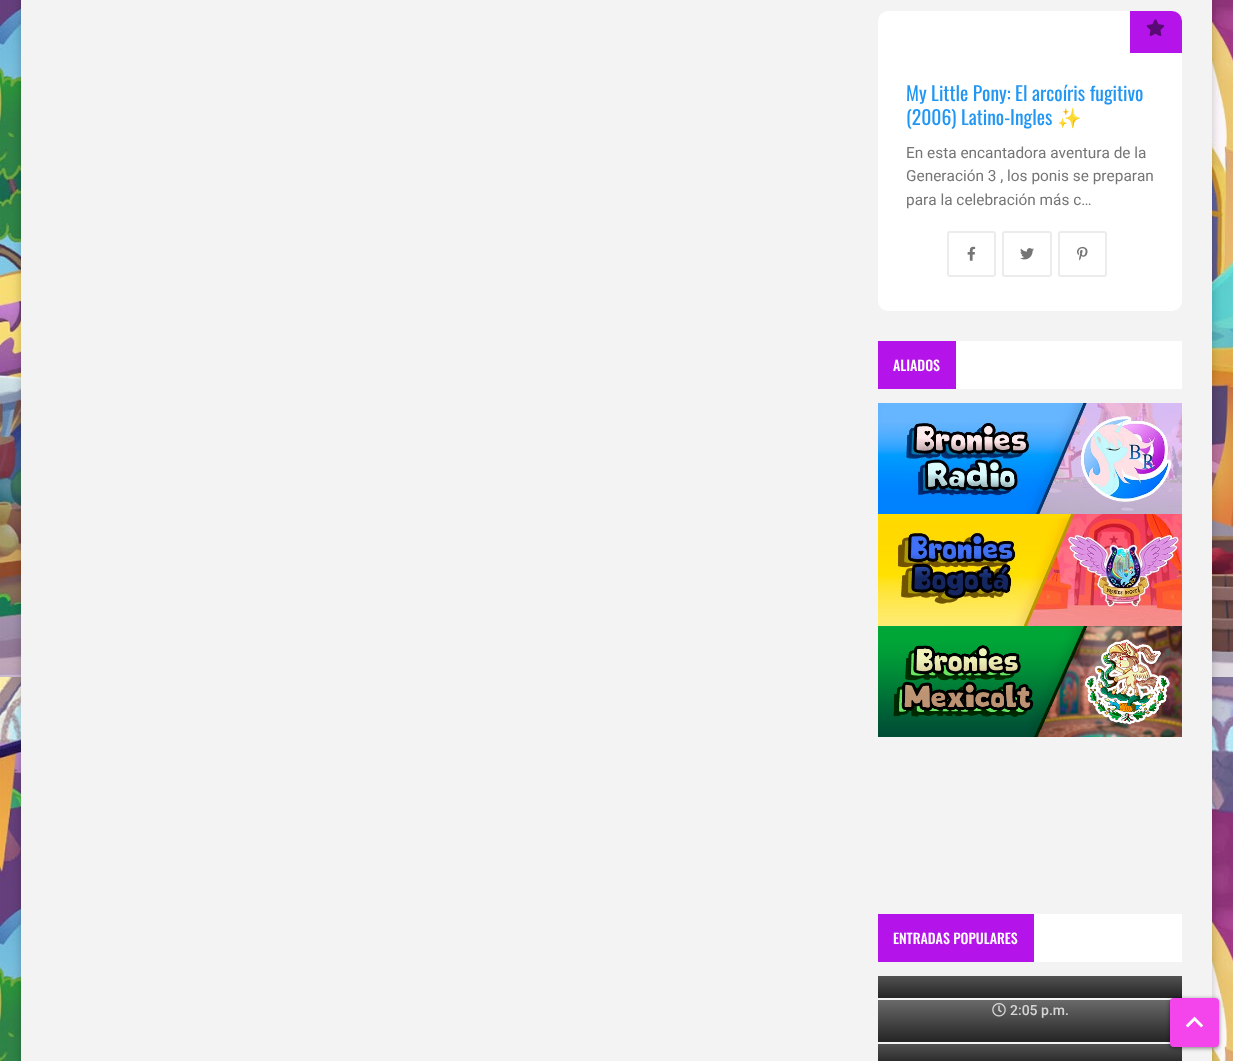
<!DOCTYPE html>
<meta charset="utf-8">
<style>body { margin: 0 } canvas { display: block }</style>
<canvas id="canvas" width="1233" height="1061"></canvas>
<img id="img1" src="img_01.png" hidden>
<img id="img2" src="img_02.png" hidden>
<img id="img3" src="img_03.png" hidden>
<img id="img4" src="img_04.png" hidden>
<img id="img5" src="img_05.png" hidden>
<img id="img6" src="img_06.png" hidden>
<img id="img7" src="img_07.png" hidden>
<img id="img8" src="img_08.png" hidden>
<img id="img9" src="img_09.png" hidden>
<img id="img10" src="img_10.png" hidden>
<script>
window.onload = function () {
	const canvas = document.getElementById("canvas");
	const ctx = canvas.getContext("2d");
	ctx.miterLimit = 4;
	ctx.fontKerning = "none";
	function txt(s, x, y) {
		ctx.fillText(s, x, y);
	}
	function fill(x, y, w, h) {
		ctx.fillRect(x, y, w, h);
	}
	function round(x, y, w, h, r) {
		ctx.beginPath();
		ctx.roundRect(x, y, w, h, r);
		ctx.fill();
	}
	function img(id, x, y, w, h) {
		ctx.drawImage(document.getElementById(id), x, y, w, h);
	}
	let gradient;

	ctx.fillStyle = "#FFFFFF";
	fill(0, 0, 1233, 1061);
	img("img1", 0, 0, 1233, 1061);
	ctx.fillStyle = "rgba(0, 0, 0, 0.05)";
	ctx.filter = "blur(12.5px)";
	ctx.beginPath();
	ctx.rect(21, -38, 1191, 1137);
	ctx.fill();
	ctx.filter = "none";
	ctx.fillStyle = "rgba(0, 0, 0, 0.2)";
	ctx.filter = "blur(4px)";
	ctx.beginPath();
	ctx.rect(21, -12, 1191, 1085);
	ctx.fill();
	ctx.filter = "none";
	ctx.fillStyle = "#F3F3F3";
	fill(21, 0, 1191, 1061);
	ctx.fillStyle = "#FFFFFF";
	round(878, 11, 304, 300, 10);
	ctx.fillStyle = "#B414E9";
	ctx.beginPath();
	ctx.roundRect(1130, 11, 52, 42, [0, 10, 0, 0]);
	ctx.fill();
	img("img2", 1146, 19, 19, 17);
	ctx.beginPath();
	ctx.roundRect(948, 232, 47, 44, 2);
	ctx.strokeStyle = "#ECECEC";
	ctx.lineWidth = 2;
	ctx.stroke();
	img("img3", 967, 246, 9, 15);
	ctx.beginPath();
	ctx.roundRect(1003, 232, 48, 44, 2);
	ctx.stroke();
	img("img4", 1020, 248, 14, 12);
	ctx.beginPath();
	ctx.roundRect(1059, 232, 47, 44, 2);
	ctx.stroke();
	img("img5", 1077, 246, 11, 15);
	ctx.fillStyle = "#FFFFFF";
	fill(956, 341, 226, 48);
	ctx.fillStyle = "#B414E9";
	fill(878, 341, 78, 48);
	img("img6", 878, 403, 304, 111);
	img("img7", 878, 514, 304, 112);
	img("img8", 878, 626, 304, 111);
	ctx.fillStyle = "#FFFFFF";
	fill(1034, 914, 148, 48);
	ctx.fillStyle = "#B414E9";
	fill(878, 914, 156, 48);
	gradient = ctx.createLinearGradient(1030, 900, 1030, 998);
	gradient.addColorStop(0, "#F3F3F3");
	gradient.addColorStop(1, "#242424");
	ctx.fillStyle = gradient;
	fill(878, 976, 304, 22);
	gradient = ctx.createLinearGradient(1030, 917, 1030, 1042);
	gradient.addColorStop(0, "#F3F3F3");
	gradient.addColorStop(1, "#242424");
	ctx.fillStyle = gradient;
	fill(878, 1000, 293, 42);
	img("img9", 992, 1003, 14, 14);
	gradient = ctx.createLinearGradient(1030, 968, 1030, 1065);
	gradient.addColorStop(0, "#F3F3F3");
	gradient.addColorStop(1, "#242424");
	ctx.fillStyle = gradient;
	fill(878, 1044, 304, 17);
	ctx.fillStyle = "rgba(0, 0, 0, 0.5)";
	ctx.filter = "blur(2px)";
	ctx.beginPath();
	ctx.roundRect(1170, 999, 49, 49, 4);
	ctx.fill();
	ctx.filter = "none";
	ctx.fillStyle = "#F345EB";
	round(1170, 998, 49, 49, 4);
	img("img10", 1185, 1016, 19, 12);
	ctx.font = "19.6px Oswald";
	ctx.fillStyle = "#2196F3";
	txt("My Little Pony: El arcoíris fugitivo", 906, 101);
	txt("(2006) Latino-Ingles", 906, 125);
	ctx.font = "19.6px Noto Color Emoji";
	txt("✨", 1057, 125);
	ctx.font = "15.4px Roboto";
	ctx.fillStyle = "#757575";
	txt("En esta encantadora aventura de la", 906, 158);
	txt("Generación 3 , los ponis se preparan", 906, 181);
	txt("para la celebración más c…", 906, 205);
	ctx.font = "500 14px Oswald";
	ctx.fillStyle = "#FFFFFF";
	txt("ALIADOS", 893, 371);
	txt("ENTRADAS POPULARES", 893, 944);
	ctx.font = "500 14px Roboto";
	ctx.fillStyle = "#D5D5D5";
	txt("2:05 p.m.", 1010, 1015);
};
</script>
